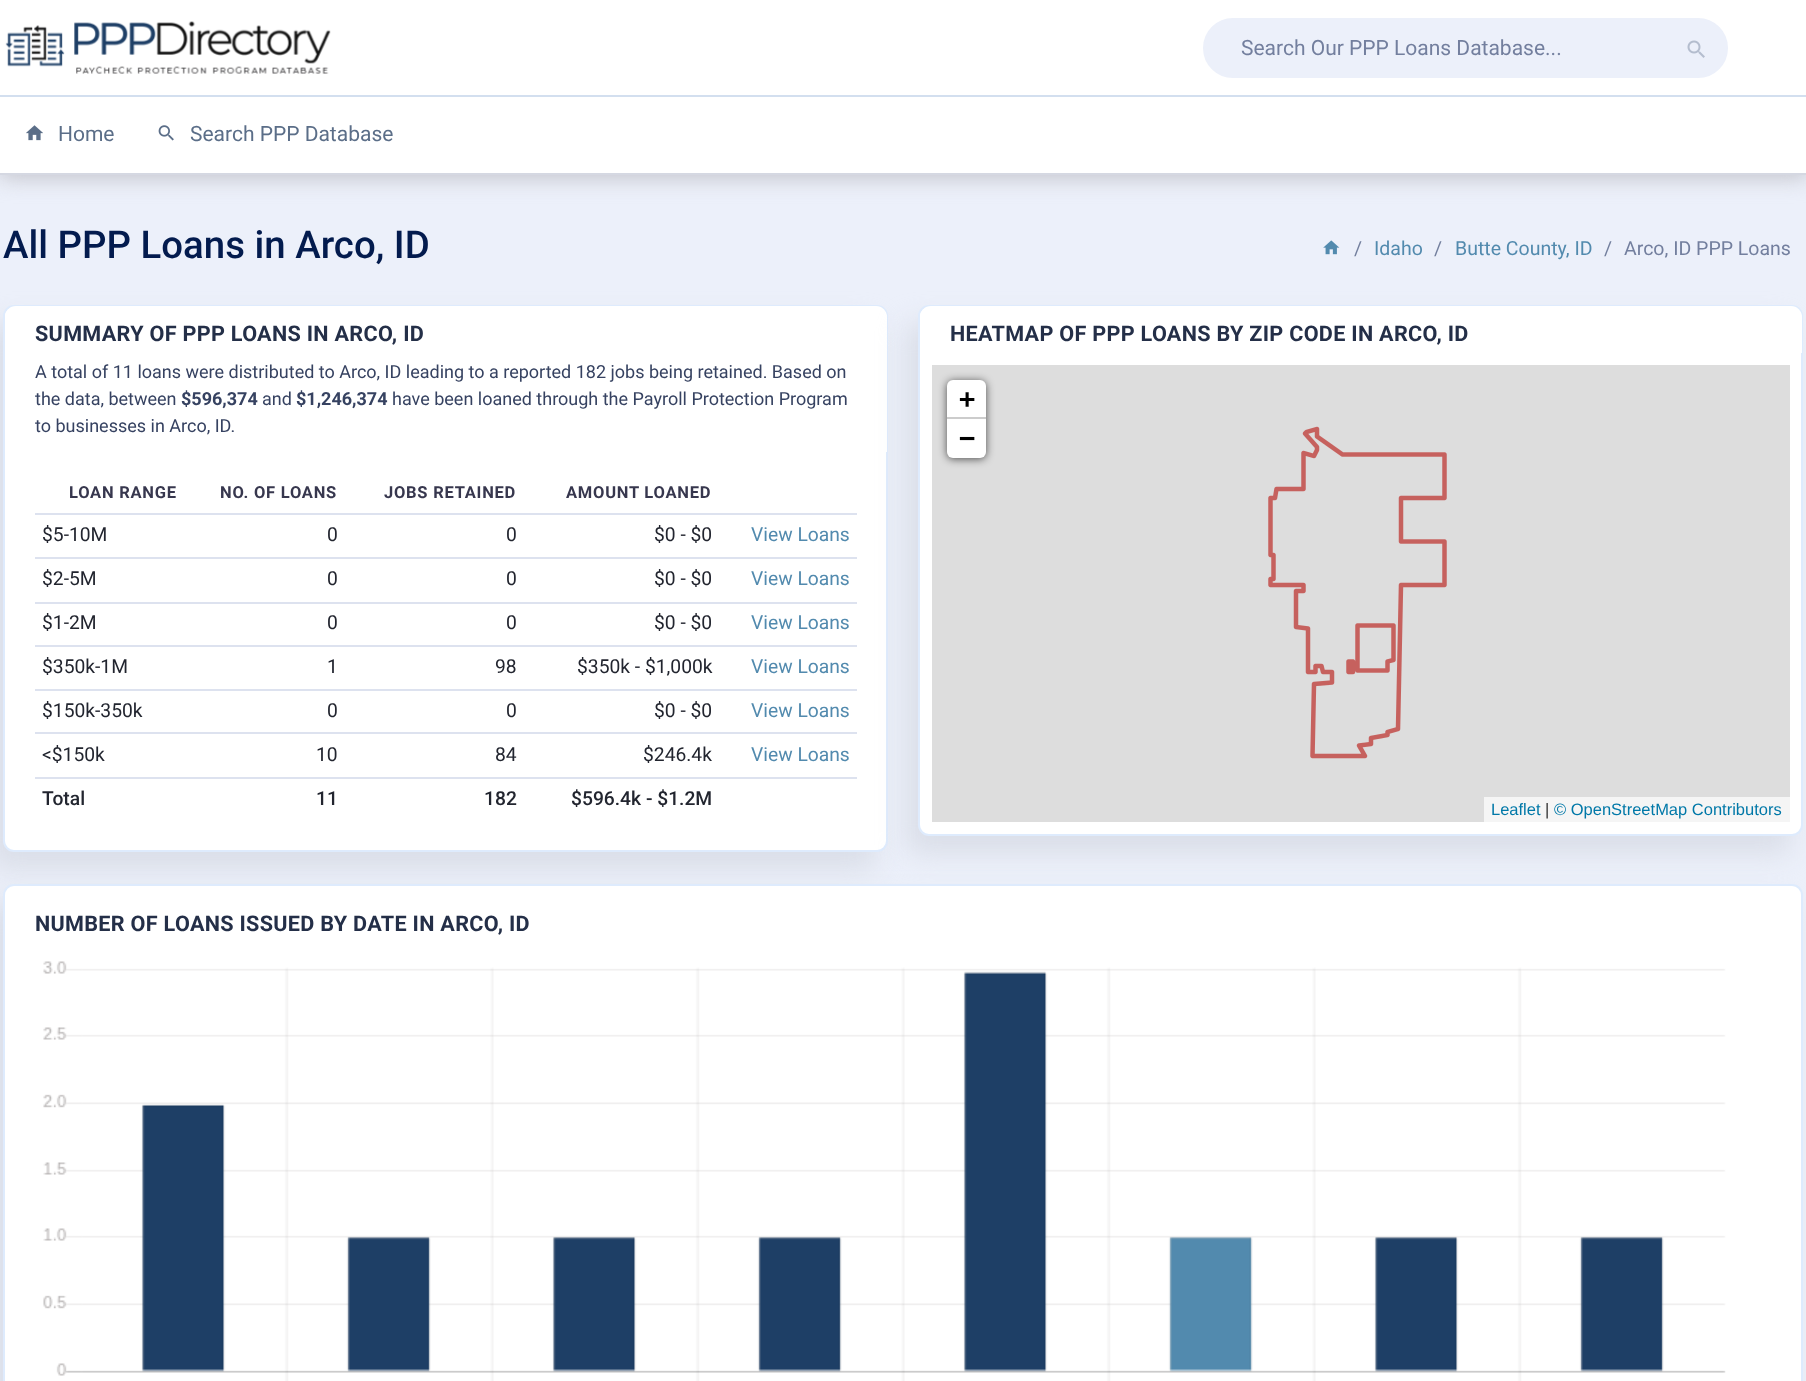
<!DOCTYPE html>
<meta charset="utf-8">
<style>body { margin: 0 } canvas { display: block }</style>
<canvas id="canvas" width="1806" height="1381"></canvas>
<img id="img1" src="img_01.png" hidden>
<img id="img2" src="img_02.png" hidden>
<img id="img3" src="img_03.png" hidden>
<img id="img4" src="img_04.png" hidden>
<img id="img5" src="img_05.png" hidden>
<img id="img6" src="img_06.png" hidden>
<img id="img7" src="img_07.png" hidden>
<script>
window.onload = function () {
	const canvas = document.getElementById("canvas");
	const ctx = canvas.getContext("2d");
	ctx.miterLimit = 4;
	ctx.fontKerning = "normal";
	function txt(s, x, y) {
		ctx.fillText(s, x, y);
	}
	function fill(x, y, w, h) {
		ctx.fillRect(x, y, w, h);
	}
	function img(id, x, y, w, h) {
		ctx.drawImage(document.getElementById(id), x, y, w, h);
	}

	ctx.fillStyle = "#ECF0FA";
	fill(0, 0, 1806, 1381);
	ctx.fillStyle = "#C0C0C7";
	ctx.filter = "blur(11px)";
	ctx.beginPath();
	ctx.rect(-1, 95, 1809, 82);
	ctx.fill();
	ctx.filter = "none";
	ctx.fillStyle = "#FFFFFF";
	fill(0, 0, 1806, 95);
	ctx.fillStyle = "#D3DFEF";
	fill(0, 95, 1806, 2);
	img("img1", 5, 21, 326, 53);
	ctx.fillStyle = "#ECF0FA";
	ctx.beginPath();
	ctx.roundRect(1204, 19, 523, 58, 29);
	ctx.fill();
	ctx.strokeStyle = "#ECF0FA";
	ctx.lineWidth = 2;
	ctx.stroke();
	img("img2", 1687, 40, 18, 18);
	ctx.fillStyle = "#FFFFFF";
	fill(0, 97, 1806, 76);
	ctx.fillStyle = "#D5D8E2";
	fill(0, 173, 1806, 2);
	img("img3", 26, 125, 17, 16);
	img("img4", 158, 125, 16, 16);
	img("img5", 1323, 240, 17, 15);
	ctx.fillStyle = "#DADEE8";
	ctx.filter = "blur(13.5px)";
	ctx.beginPath();
	ctx.roundRect(-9, 323, 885, 547, 11);
	ctx.fill();
	ctx.filter = "none";
	ctx.fillStyle = "#FFFFFF";
	ctx.beginPath();
	ctx.roundRect(4, 306, 883, 545, 10);
	ctx.fill();
	ctx.strokeStyle = "#DEEBFD";
	ctx.stroke();
	ctx.beginPath();
	ctx.roundRect(5, 306, 882, 146, [11, 11, 0, 0]);
	ctx.fill();
	ctx.fillStyle = "#DDE2EF";
	fill(35, 513, 822, 2);
	fill(35, 557, 822, 2);
	fill(35, 602, 822, 2);
	fill(35, 645, 822, 2);
	fill(35, 689, 822, 2);
	fill(35, 732, 822, 2);
	fill(35, 777, 822, 2);
	ctx.fillStyle = "#DADEE8";
	ctx.filter = "blur(13.5px)";
	ctx.beginPath();
	ctx.roundRect(906, 323, 885, 531, 11);
	ctx.fill();
	ctx.filter = "none";
	ctx.fillStyle = "#FFFFFF";
	ctx.beginPath();
	ctx.roundRect(919, 306, 883, 529, 10);
	ctx.fill();
	ctx.stroke();
	ctx.beginPath();
	ctx.roundRect(920, 306, 882, 47, [11, 11, 0, 0]);
	ctx.fill();
	ctx.fillStyle = "#DDDDDD";
	fill(932, 365, 858, 457);
	ctx.fillStyle = "rgba(0, 0, 0, 0.65)";
	ctx.filter = "blur(4px)";
	ctx.beginPath();
	ctx.roundRect(947, 381, 39, 78, 6);
	ctx.fill();
	ctx.filter = "none";
	ctx.fillStyle = "#FFFFFF";
	ctx.beginPath();
	ctx.roundRect(947, 380, 39, 39, [6, 6, 0, 0]);
	ctx.fill();
	ctx.fillStyle = "#CCCCCC";
	fill(947, 417, 39, 2);
	ctx.fillStyle = "#FFFFFF";
	ctx.beginPath();
	ctx.roundRect(947, 419, 39, 39, [0, 0, 6, 6]);
	ctx.fill();
	ctx.fillStyle = "#F5F5F5";
	fill(1484, 797, 306, 25);
	img("img6", 1268, 426, 179, 333);
	ctx.fillStyle = "#DADEE8";
	ctx.filter = "blur(13.5px)";
	ctx.beginPath();
	ctx.roundRect(-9, 902, 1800, 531, 11);
	ctx.fill();
	ctx.filter = "none";
	ctx.fillStyle = "#FFFFFF";
	ctx.beginPath();
	ctx.roundRect(4, 885, 1798, 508, 10);
	ctx.fill();
	ctx.stroke();
	img("img7", 43, 961, 1683, 420);
	ctx.font = "21px Roboto";
	ctx.fillStyle = "#737F9E";
	txt("Search Our PPP Loans Database...", 1241, 55);
	ctx.fillStyle = "#5B6E88";
	txt("Home", 58, 141);
	txt("Search PPP Database", 190, 141);
	ctx.font = "500 38.4px Roboto";
	ctx.fillStyle = "#031B4E";
	txt("All PPP Loans in Arco, ID", 3, 258);
	ctx.font = "19.5px Roboto";
	ctx.fillStyle = "#737F9E";
	txt("/", 1354, 255);
	ctx.fillStyle = "#528AAE";
	txt("Idaho", 1374, 255);
	ctx.fillStyle = "#737F9E";
	txt("/", 1434, 255);
	ctx.fillStyle = "#528AAE";
	txt("Butte County, ID", 1455, 255);
	ctx.fillStyle = "#737F9E";
	txt("/", 1604, 255);
	txt("Arco, ID PPP Loans", 1624, 255);
	ctx.letterSpacing = "0.3px";
	ctx.font = "bold 21.6px Roboto";
	ctx.fillStyle = "#242F48";
	txt("SUMMARY OF PPP LOANS IN ARCO, ID", 35, 341);
	ctx.letterSpacing = "0px";
	ctx.font = "18px Roboto";
	ctx.fillStyle = "#364261";
	txt("A total of 11 loans were distributed to Arco, ID leading to a reported 182 jobs being retained. Based on", 35, 378);
	txt("the data, between", 35, 405);
	ctx.font = "bold 18px Roboto";
	txt("$596,374", 181, 405);
	ctx.font = "18px Roboto";
	txt("and", 262, 405);
	ctx.font = "bold 18px Roboto";
	txt("$1,246,374", 296, 405);
	ctx.font = "18px Roboto";
	txt("have been loaned through the Payroll Protection Program", 392, 405);
	txt("to businesses in Arco, ID.", 35, 432);
	ctx.letterSpacing = "0.75px";
	ctx.font = "bold 16.5px Roboto";
	ctx.fillStyle = "#37374E";
	txt("LOAN RANGE", 69, 498);
	txt("NO. OF LOANS", 220, 498);
	txt("JOBS RETAINED", 384, 498);
	txt("AMOUNT LOANED", 566, 498);
	ctx.letterSpacing = "0px";
	ctx.font = "19.25px Roboto";
	ctx.fillStyle = "#22252F";
	txt("$5-10M", 42, 541);
	txt("0", 327, 541);
	txt("0", 506, 541);
	txt("$0 - $0", 654, 541);
	ctx.fillStyle = "#528AAE";
	txt("View Loans", 751, 541);
	ctx.fillStyle = "#22252F";
	txt("$2-5M", 42, 585);
	txt("0", 327, 585);
	txt("0", 506, 585);
	txt("$0 - $0", 654, 585);
	ctx.fillStyle = "#528AAE";
	txt("View Loans", 751, 585);
	ctx.fillStyle = "#22252F";
	txt("$1-2M", 42, 629);
	txt("0", 327, 629);
	txt("0", 506, 629);
	txt("$0 - $0", 654, 629);
	ctx.fillStyle = "#528AAE";
	txt("View Loans", 751, 629);
	ctx.fillStyle = "#22252F";
	txt("$350k-1M", 42, 673);
	txt("1", 327, 673);
	txt("98", 495, 673);
	txt("$350k - $1,000k", 577, 673);
	ctx.fillStyle = "#528AAE";
	txt("View Loans", 751, 673);
	ctx.fillStyle = "#22252F";
	txt("$150k-350k", 42, 717);
	txt("0", 327, 717);
	txt("0", 506, 717);
	txt("$0 - $0", 654, 717);
	ctx.fillStyle = "#528AAE";
	txt("View Loans", 751, 717);
	ctx.fillStyle = "#22252F";
	txt("<$150k", 42, 761);
	txt("10", 316, 761);
	txt("84", 495, 761);
	txt("$246.4k", 643, 761);
	ctx.fillStyle = "#528AAE";
	txt("View Loans", 751, 761);
	ctx.font = "500 19.25px Roboto";
	ctx.fillStyle = "#22252F";
	txt("Total", 42, 805);
	txt("11", 316, 805);
	txt("182", 484, 805);
	txt("$596.4k - $1.2M", 571, 805);
	ctx.letterSpacing = "0.3px";
	ctx.font = "bold 21.6px Roboto";
	ctx.fillStyle = "#242F48";
	txt("HEATMAP OF PPP LOANS BY ZIP CODE IN ARCO, ID", 950, 341);
	ctx.letterSpacing = "0px";
	ctx.font = "bold 27px DejaVu Sans Mono";
	ctx.fillStyle = "#000000";
	txt("+", 959, 408);
	txt("−", 959, 447);
	ctx.font = "16.5px Liberation Sans";
	ctx.fillStyle = "#0078A8";
	txt("Leaflet", 1491, 815);
	ctx.fillStyle = "#333333";
	txt("|", 1545, 815);
	ctx.fillStyle = "#0078A8";
	txt("© OpenStreetMap Contributors", 1554, 815);
	ctx.letterSpacing = "0.3px";
	ctx.font = "bold 21.6px Roboto";
	ctx.fillStyle = "#242F48";
	txt("NUMBER OF LOANS ISSUED BY DATE IN ARCO, ID", 35, 931);
};
</script>
